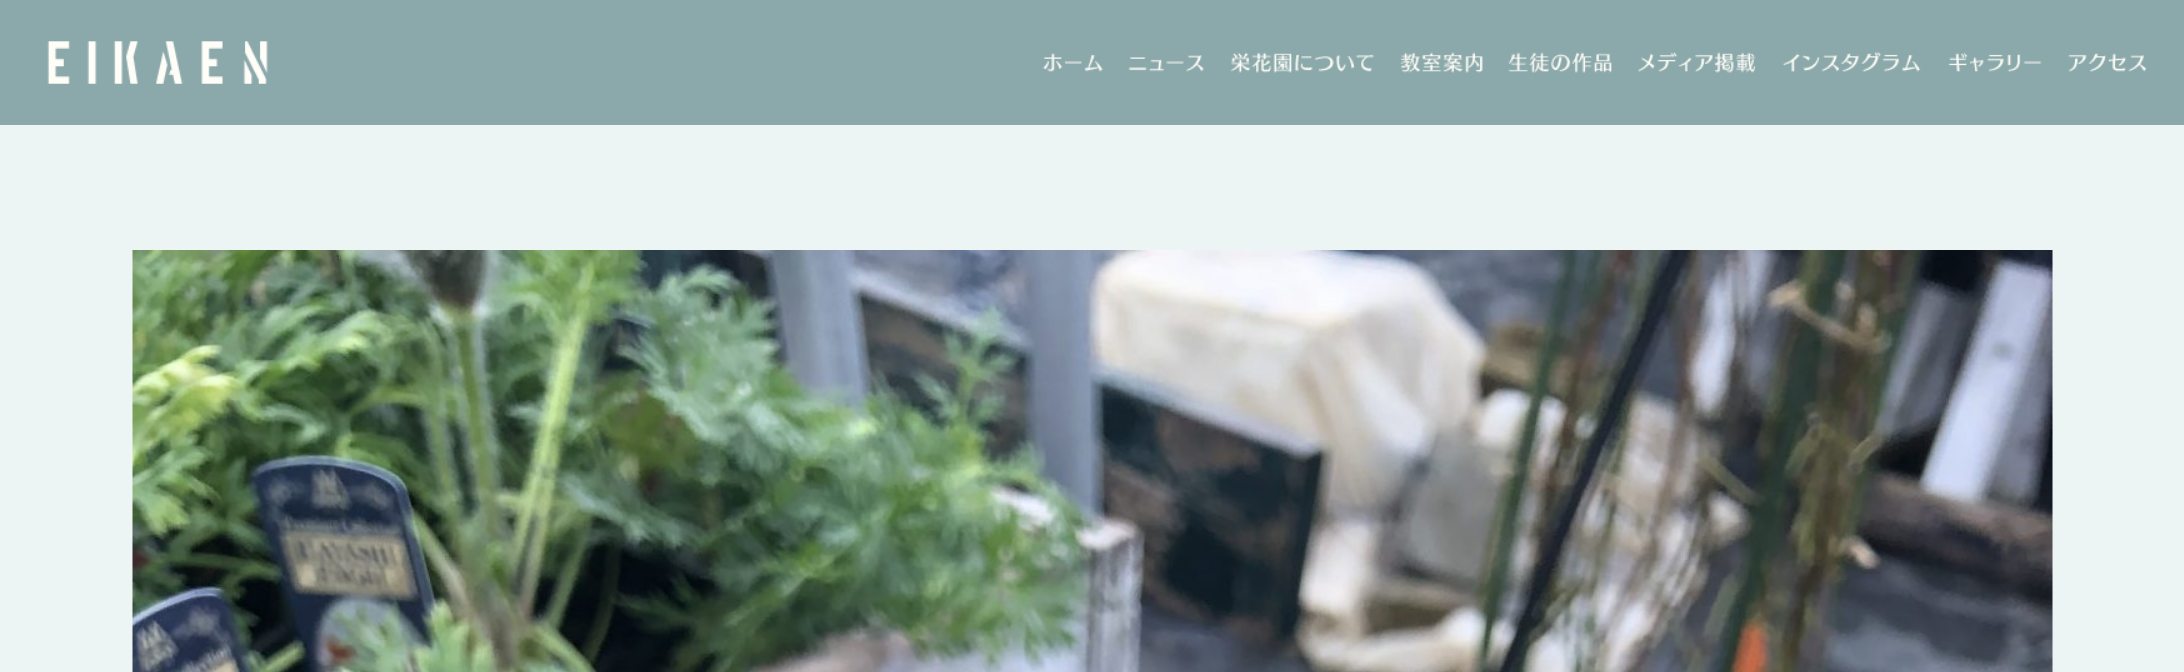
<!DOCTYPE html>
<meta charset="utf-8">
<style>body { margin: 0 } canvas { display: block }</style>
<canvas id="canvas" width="2184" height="672"></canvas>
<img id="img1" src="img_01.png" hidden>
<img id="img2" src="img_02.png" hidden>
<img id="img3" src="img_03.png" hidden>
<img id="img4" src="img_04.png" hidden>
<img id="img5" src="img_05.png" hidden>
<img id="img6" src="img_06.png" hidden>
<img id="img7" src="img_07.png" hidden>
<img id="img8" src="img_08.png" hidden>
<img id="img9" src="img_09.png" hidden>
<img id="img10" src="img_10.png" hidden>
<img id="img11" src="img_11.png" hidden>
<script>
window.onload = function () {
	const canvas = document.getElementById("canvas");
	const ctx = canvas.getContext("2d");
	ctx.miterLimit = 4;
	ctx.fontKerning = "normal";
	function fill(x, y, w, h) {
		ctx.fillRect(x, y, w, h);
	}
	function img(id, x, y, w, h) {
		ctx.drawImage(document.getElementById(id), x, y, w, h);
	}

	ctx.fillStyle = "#ECF5F4";
	fill(0, 0, 2184, 672);
	ctx.fillStyle = "#8BA9AB";
	fill(0, 0, 2184, 125);
	img("img1", 47, 41, 221, 43);
	img("img2", 1042, 53, 61, 19);
	img("img3", 1128, 55, 76, 17);
	img("img4", 1230, 52, 144, 21);
	img("img5", 1400, 52, 83, 21);
	img("img6", 1508, 52, 104, 21);
	img("img7", 1637, 52, 119, 21);
	img("img8", 1782, 52, 139, 20);
	img("img9", 1948, 52, 94, 20);
	img("img10", 2068, 53, 79, 19);
	img("img11", 132, 250, 1921, 422);
};
</script>
